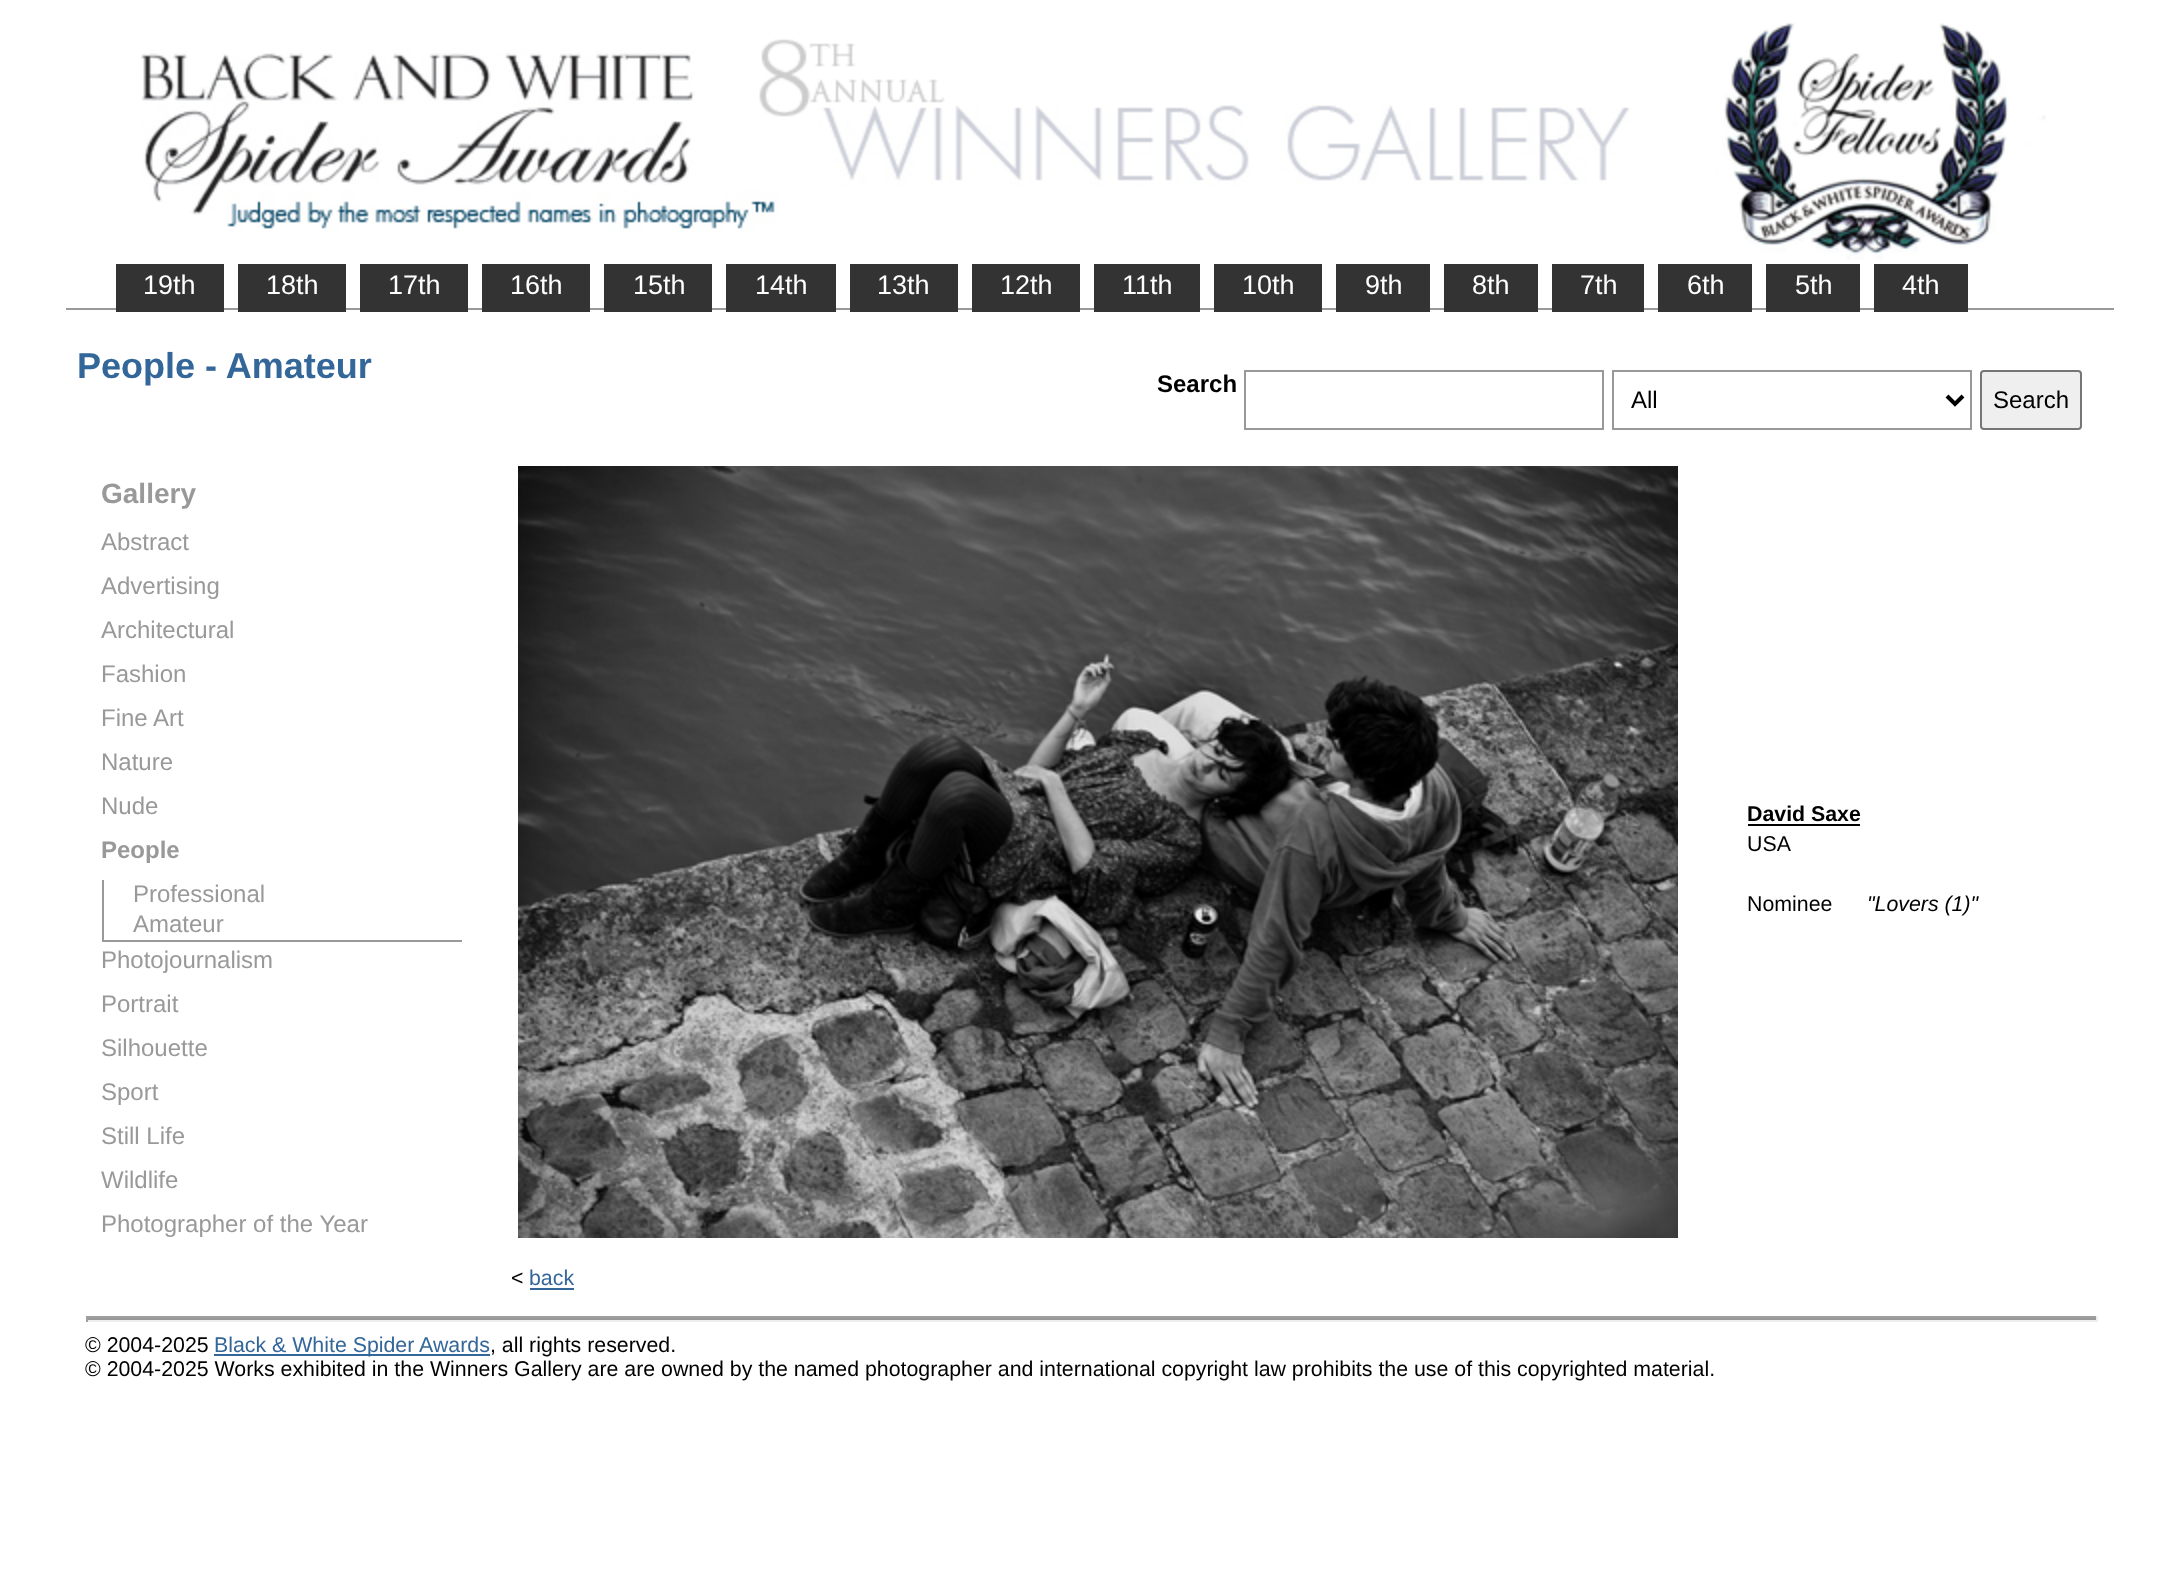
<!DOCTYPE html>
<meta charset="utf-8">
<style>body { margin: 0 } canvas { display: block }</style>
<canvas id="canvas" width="2178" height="1572"></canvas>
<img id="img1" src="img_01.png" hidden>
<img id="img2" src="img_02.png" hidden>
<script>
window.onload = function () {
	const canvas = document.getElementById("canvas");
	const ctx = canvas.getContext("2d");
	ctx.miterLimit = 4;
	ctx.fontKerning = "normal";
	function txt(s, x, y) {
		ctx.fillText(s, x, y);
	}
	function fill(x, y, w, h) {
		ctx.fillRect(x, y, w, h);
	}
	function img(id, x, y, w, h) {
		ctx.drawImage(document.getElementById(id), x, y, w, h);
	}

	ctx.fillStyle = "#FFFFFF";
	fill(0, 0, 2178, 1572);
	img("img1", 141, 23, 1905, 237);
	ctx.fillStyle = "#999999";
	fill(66, 308, 2048, 2);
	ctx.fillStyle = "#333333";
	fill(116, 264, 108, 48);
	fill(238, 264, 108, 48);
	fill(360, 264, 108, 48);
	fill(482, 264, 108, 48);
	fill(604, 264, 108, 48);
	fill(726, 264, 110, 48);
	fill(850, 264, 108, 48);
	fill(972, 264, 108, 48);
	fill(1094, 264, 106, 48);
	fill(1214, 264, 108, 48);
	fill(1336, 264, 94, 48);
	fill(1444, 264, 94, 48);
	fill(1552, 264, 92, 48);
	fill(1658, 264, 94, 48);
	fill(1766, 264, 94, 48);
	fill(1874, 264, 94, 48);
	ctx.strokeStyle = "#999999";
	ctx.lineWidth = 2;
	ctx.strokeRect(1245, 371, 358, 58);
	ctx.strokeRect(1613, 371, 358, 58);
	ctx.beginPath();
	ctx.moveTo(1947, 396);
	ctx.lineTo(1955, 404);
	ctx.lineTo(1963, 396);
	ctx.strokeStyle = "#000000";
	ctx.lineWidth = 4;
	ctx.stroke();
	ctx.fillStyle = "#EFEFEF";
	ctx.beginPath();
	ctx.roundRect(1981, 371, 100, 58, 3);
	ctx.fill();
	ctx.strokeStyle = "#767676";
	ctx.lineWidth = 2;
	ctx.stroke();
	ctx.fillStyle = "#999999";
	fill(102, 940, 360, 2);
	fill(102, 880, 2, 62);
	img("img2", 518, 466, 1160, 772);
	ctx.fillStyle = "#000000";
	fill(1748, 824, 112, 2);
	ctx.fillStyle = "#336699";
	fill(530, 1288, 44, 2);
	ctx.fillStyle = "#999999";
	fill(86, 1318, 2012, 2);
	ctx.fillStyle = "#9F9F9F";
	fill(86, 1316, 2012, 2);
	ctx.fillStyle = "#EEEEEE";
	fill(2096, 1316, 2, 6);
	fill(86, 1320, 2012, 2);
	ctx.fillStyle = "#9F9F9F";
	fill(86, 1316, 2, 6);
	ctx.fillStyle = "#336699";
	fill(214, 1354, 276, 2);
	ctx.font = "27px Liberation Sans";
	ctx.fillStyle = "#FFFFFF";
	txt("19th", 143, 294);
	txt("18th", 266, 294);
	txt("17th", 388, 294);
	txt("16th", 510, 294);
	txt("15th", 633, 294);
	txt("14th", 755, 294);
	txt("13th", 877, 294);
	txt("12th", 1000, 294);
	txt("11th", 1122, 294);
	txt("10th", 1242, 294);
	txt("9th", 1365, 294);
	txt("8th", 1472, 294);
	txt("7th", 1580, 294);
	txt("6th", 1687, 294);
	txt("5th", 1795, 294);
	txt("4th", 1902, 294);
	ctx.font = "bold 36px Liberation Sans";
	ctx.fillStyle = "#336699";
	txt("People - Amateur", 77, 378);
	ctx.font = "bold 24px Liberation Sans";
	ctx.fillStyle = "#000000";
	txt("Search", 1157, 392);
	ctx.font = "24px Liberation Sans";
	txt("All", 1631, 408);
	txt("Search", 1993, 408);
	ctx.font = "bold 28px Liberation Sans";
	ctx.fillStyle = "#999999";
	txt("Gallery", 101, 503);
	ctx.font = "24px Liberation Sans";
	txt("Abstract", 101, 550);
	txt("Advertising", 101, 594);
	txt("Architectural", 101, 638);
	txt("Fashion", 101, 682);
	txt("Fine Art", 101, 726);
	txt("Nature", 101, 770);
	txt("Nude", 101, 814);
	ctx.font = "bold 24px Liberation Sans";
	txt("People", 101, 858);
	ctx.font = "24px Liberation Sans";
	txt("Professional", 133, 902);
	txt("Amateur", 133, 932);
	txt("Photojournalism", 101, 968);
	txt("Portrait", 101, 1012);
	txt("Silhouette", 101, 1056);
	txt("Sport", 101, 1100);
	txt("Still Life", 101, 1144);
	txt("Wildlife", 101, 1188);
	txt("Photographer of the Year", 101, 1232);
	ctx.font = "bold 21.33px Liberation Sans";
	ctx.fillStyle = "#000000";
	txt("David Saxe", 1747, 821);
	ctx.font = "21.33px Liberation Sans";
	txt("USA", 1747, 851);
	txt("Nominee", 1747, 911);
	ctx.font = "italic 21.33px Liberation Sans";
	txt("\"Lovers (1)\"", 1867, 911);
	ctx.font = "21.33px Liberation Sans";
	txt("<", 511, 1285);
	ctx.fillStyle = "#336699";
	txt("back", 529, 1285);
	ctx.fillStyle = "#000000";
	txt("© 2004-2025", 85, 1352);
	ctx.fillStyle = "#336699";
	txt("Black & White Spider Awards", 214, 1352);
	ctx.fillStyle = "#000000";
	txt(", all rights reserved.", 490, 1352);
	txt("© 2004-2025 Works exhibited in the Winners Gallery are are owned by the named photographer and international copyright law prohibits the use of this copyrighted material.", 85, 1376);
};
</script>
